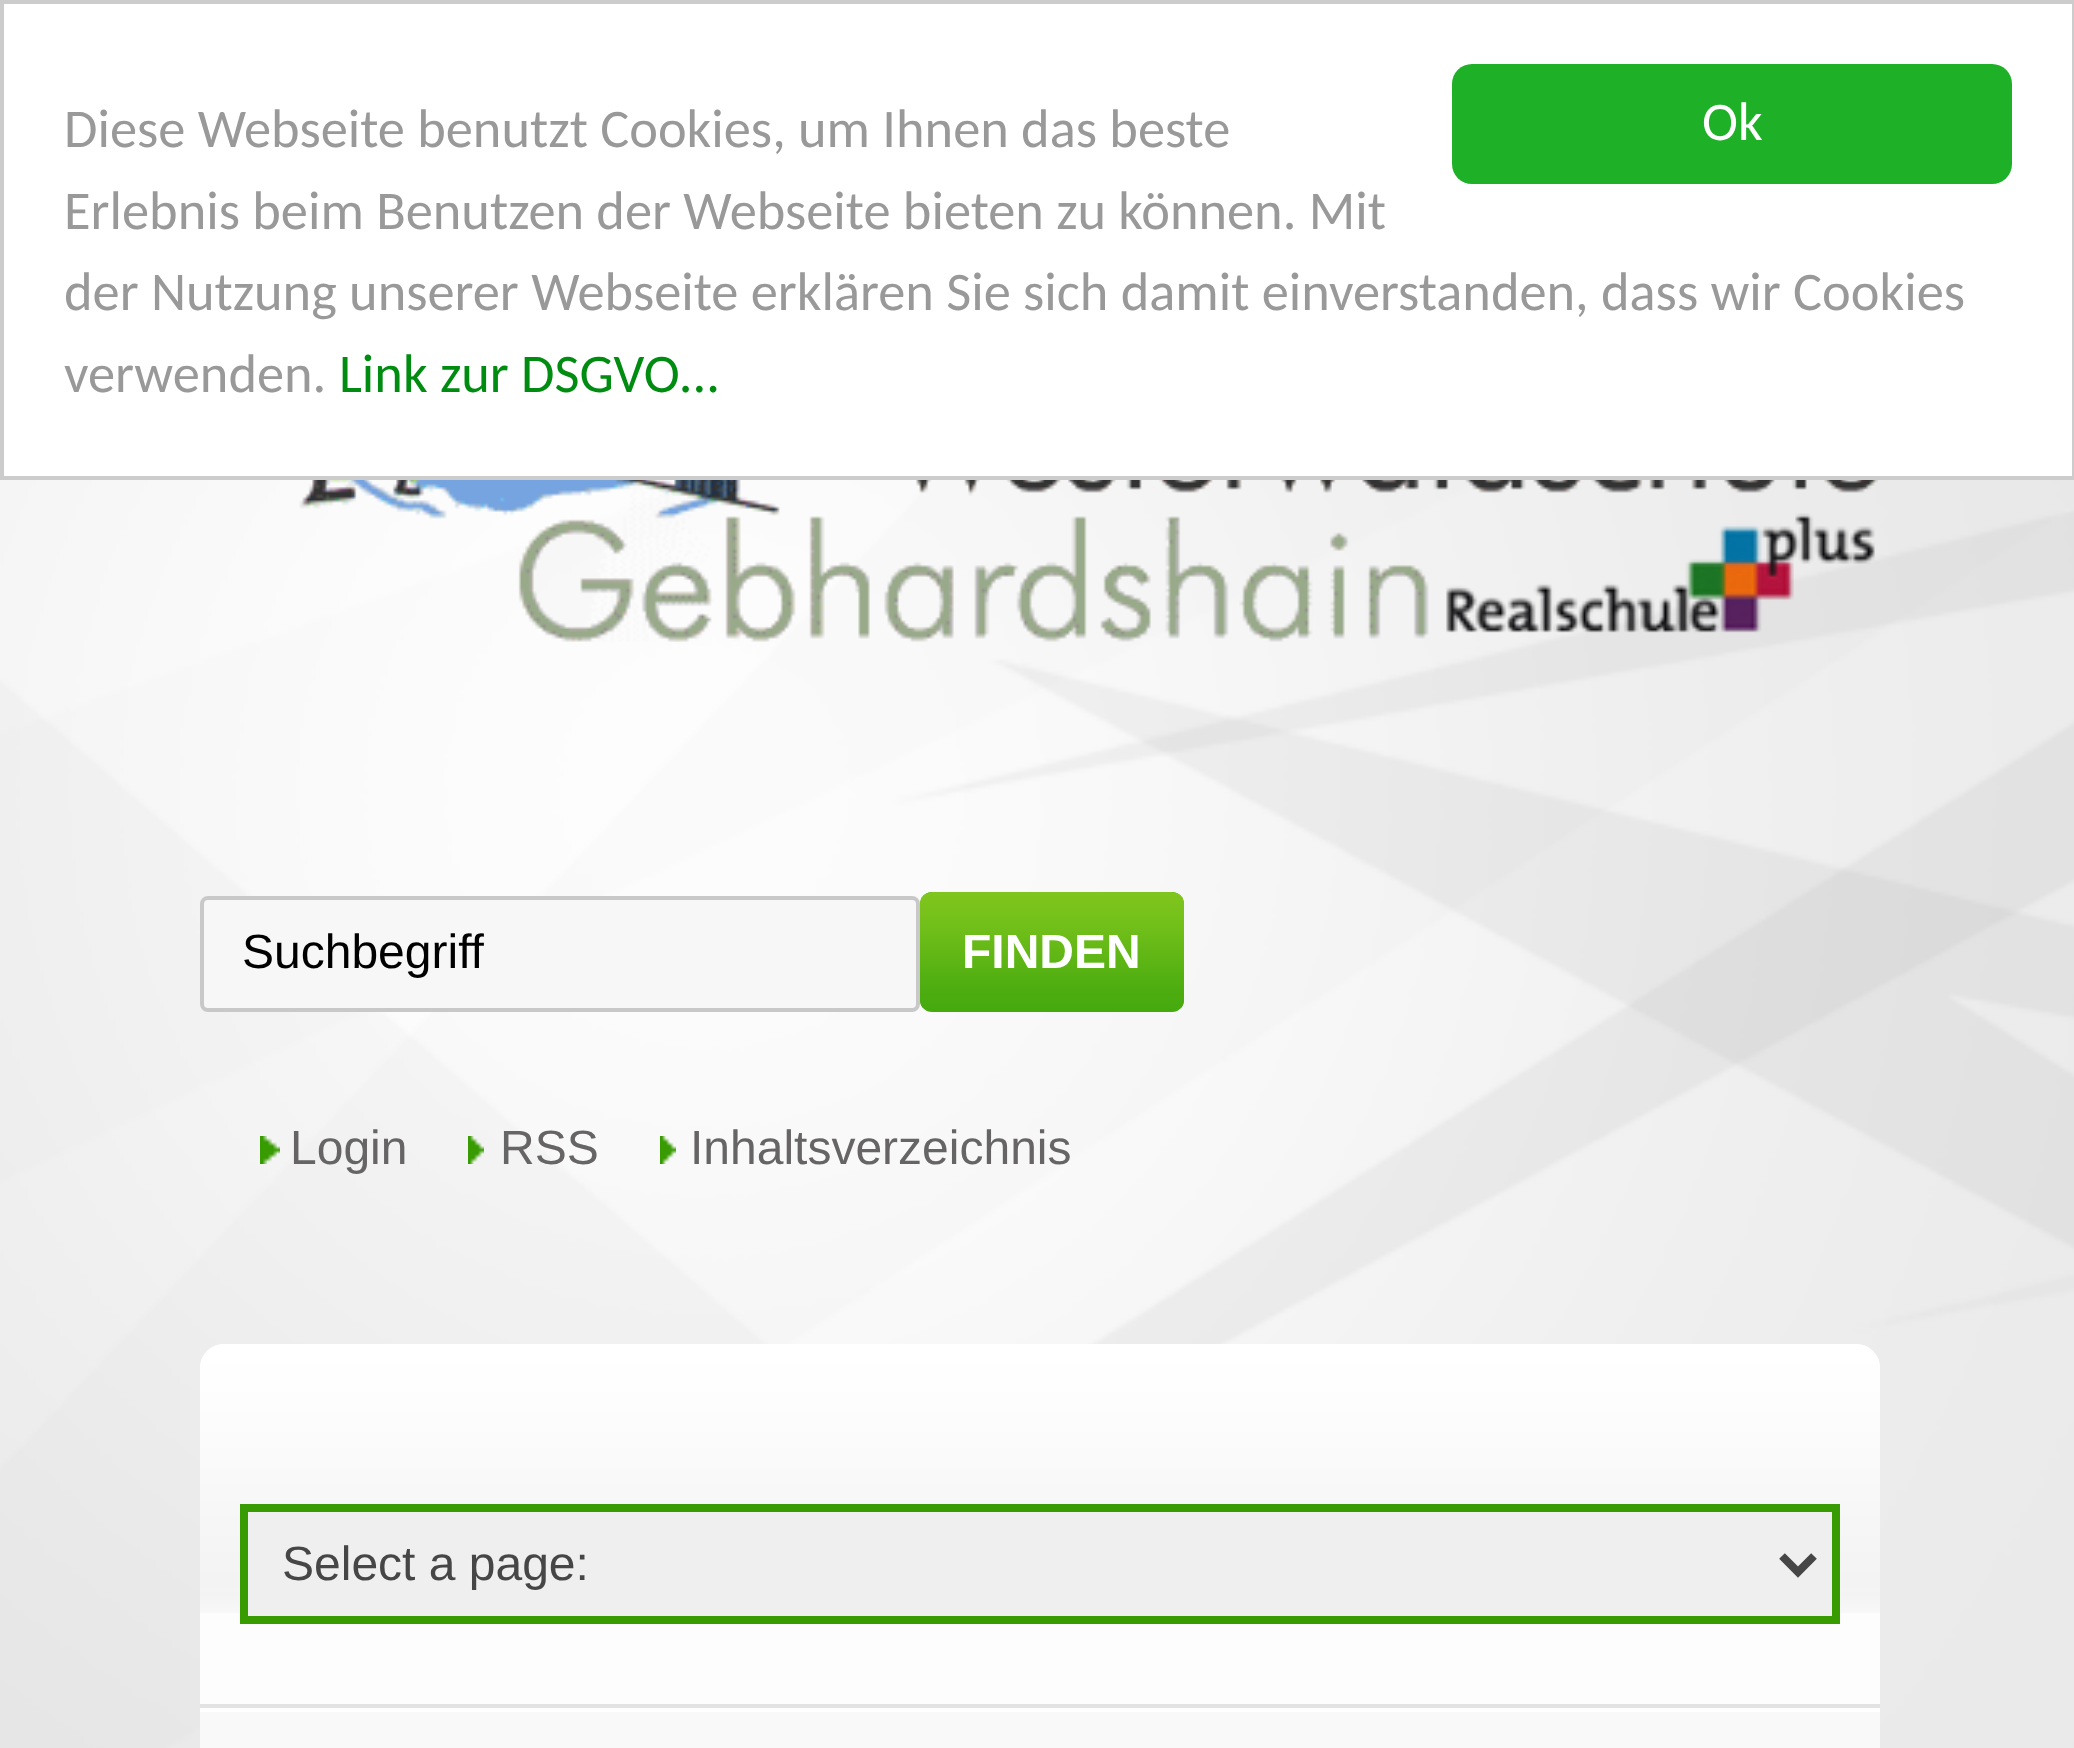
<!DOCTYPE html>
<meta charset="utf-8">
<style>body { margin: 0 } canvas { display: block }</style>
<canvas id="canvas" width="2074" height="1748"></canvas>
<img id="img1" src="img_01.png" hidden>
<img id="img2" src="img_02.png" hidden>
<img id="img3" src="img_03.png" hidden>
<img id="img4" src="img_04.png" hidden>
<img id="img5" src="img_05.png" hidden>
<img id="img6" src="img_06.png" hidden>
<img id="img7" src="img_07.png" hidden>
<script>
window.onload = function () {
	const canvas = document.getElementById("canvas");
	const ctx = canvas.getContext("2d");
	ctx.miterLimit = 4;
	ctx.fontKerning = "normal";
	function txt(s, x, y) {
		ctx.fillText(s, x, y);
	}
	function fill(x, y, w, h) {
		ctx.fillRect(x, y, w, h);
	}
	function round(x, y, w, h, r) {
		ctx.beginPath();
		ctx.roundRect(x, y, w, h, r);
		ctx.fill();
	}
	function img(id, x, y, w, h) {
		ctx.drawImage(document.getElementById(id), x, y, w, h);
	}

	ctx.fillStyle = "#FFFFFF";
	fill(0, 0, 2074, 1748);
	img("img1", 0, 480, 2074, 1268);
	ctx.strokeStyle = "#CCCCCC";
	ctx.lineWidth = 4;
	ctx.strokeRect(2, 2, 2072, 476);
	ctx.fillStyle = "#1EB027";
	round(1452, 64, 560, 120, 20);
	img("img2", 299, 480, 1579, 162);
	ctx.fillStyle = "#F7F7F7";
	ctx.beginPath();
	ctx.roundRect(202, 898, 716, 112, 6);
	ctx.fill();
	ctx.strokeStyle = "#C9C8C8";
	ctx.stroke();
	ctx.fillStyle = "#45AA0E";
	round(920, 892, 264, 120, 12);
	img("img3", 920, 892, 264, 116);
	img("img4", 260, 1136, 20, 28);
	img("img5", 468, 1136, 16, 28);
	img("img6", 660, 1136, 16, 28);
	ctx.fillStyle = "#FDFDFD";
	ctx.beginPath();
	ctx.roundRect(200, 1344, 1680, 364, [24, 24, 0, 0]);
	ctx.fill();
	img("img7", 200, 1344, 1680, 269);
	ctx.fillStyle = "#E3E3E3";
	fill(200, 1704, 1680, 4);
	ctx.fillStyle = "#EFEFEF";
	ctx.beginPath();
	ctx.rect(244, 1508, 1592, 112);
	ctx.fill();
	ctx.strokeStyle = "#379B01";
	ctx.lineWidth = 8;
	ctx.stroke();
	ctx.beginPath();
	ctx.moveTo(1782, 1556);
	ctx.lineTo(1798, 1572);
	ctx.lineTo(1814, 1556);
	ctx.strokeStyle = "#464646";
	ctx.stroke();
	ctx.fillStyle = "#F9F9F9";
	fill(200, 1712, 1680, 36);
	ctx.fillStyle = "#FFFFFF";
	fill(200, 1708, 1680, 4);
	ctx.font = "54.4px Carlito";
	txt("Ok", 1702, 140);
	ctx.fillStyle = "#999999";
	txt("Diese Webseite benutzt Cookies, um Ihnen das beste", 64, 147);
	txt("Erlebnis beim Benutzen der Webseite bieten zu können. Mit", 64, 229);
	txt("der Nutzung unserer Webseite erklären Sie sich damit einverstanden, dass wir Cookies", 64, 310);
	txt("verwenden.", 64, 392);
	ctx.fillStyle = "#008C11";
	txt("Link zur DSGVO...", 339, 392);
	ctx.font = "48px Liberation Sans";
	ctx.fillStyle = "#000000";
	txt("Suchbegriff", 242, 968);
	ctx.font = "bold 48px Liberation Sans";
	ctx.fillStyle = "#FFFFFF";
	txt("FINDEN", 962, 968);
	ctx.font = "48px Liberation Sans";
	ctx.fillStyle = "#666464";
	txt("Login", 290, 1164);
	txt("RSS", 500, 1164);
	txt("Inhaltsverzeichnis", 690, 1164);
	ctx.fillStyle = "#464646";
	txt("Select a page:", 282, 1580);
};
</script>
